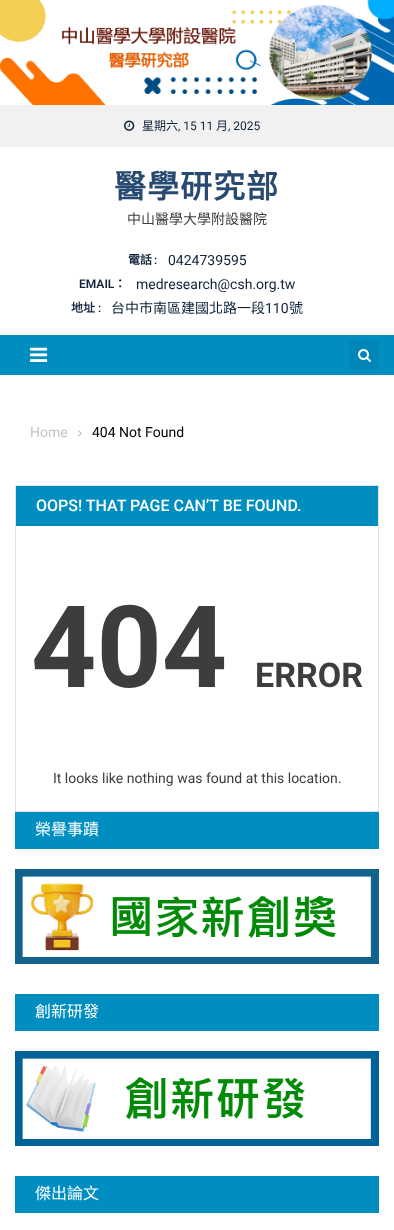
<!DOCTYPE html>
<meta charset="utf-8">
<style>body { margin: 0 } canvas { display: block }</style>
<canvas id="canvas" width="394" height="1230"></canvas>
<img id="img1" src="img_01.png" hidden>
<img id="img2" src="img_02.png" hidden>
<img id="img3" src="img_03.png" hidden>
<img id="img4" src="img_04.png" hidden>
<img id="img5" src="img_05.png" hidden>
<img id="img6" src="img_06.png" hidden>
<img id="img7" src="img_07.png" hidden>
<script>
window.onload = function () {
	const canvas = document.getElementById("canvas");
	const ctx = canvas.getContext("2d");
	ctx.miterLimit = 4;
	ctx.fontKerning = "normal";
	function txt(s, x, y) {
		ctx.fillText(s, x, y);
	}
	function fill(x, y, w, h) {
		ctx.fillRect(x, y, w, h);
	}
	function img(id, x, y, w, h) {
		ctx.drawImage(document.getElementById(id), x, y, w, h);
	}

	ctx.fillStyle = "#FFFFFF";
	fill(0, 0, 394, 1230);
	img("img1", 0, 0, 394, 105);
	ctx.fillStyle = "#F1F1F1";
	fill(0, 105, 394, 42);
	img("img2", 124, 120, 11, 11);
	ctx.fillStyle = "#008EC1";
	fill(0, 335, 394, 40);
	img("img3", 30, 347, 18, 15);
	ctx.fillStyle = "#0087B7";
	fill(349, 340, 30, 30);
	img("img4", 358, 349, 13, 13);
	img("img5", 78, 430, 4, 7);
	ctx.strokeStyle = "#E1E1E1";
	ctx.strokeRect(15.5, 485.5, 363, 326);
	ctx.fillStyle = "#008EC1";
	fill(16, 486, 362, 40);
	fill(15, 812, 364, 37);
	img("img6", 15, 869, 364, 95);
	fill(15, 994, 364, 37);
	img("img7", 15, 1051, 364, 95);
	fill(15, 1176, 364, 37);
	ctx.font = "12px Noto Sans CJK TC";
	ctx.fillStyle = "#0F233A";
	txt("星期六", 142, 130);
	ctx.font = "12px Roboto";
	txt(", 15 11", 178, 130);
	ctx.font = "12px Noto Sans CJK TC";
	txt("月", 216, 130);
	ctx.font = "12px Roboto";
	txt(", 2025", 228, 130);
	ctx.letterSpacing = "1px";
	ctx.font = "bold 32px Noto Sans CJK TC";
	ctx.fillStyle = "#294A70";
	txt("醫學研究部", 114, 198);
	ctx.letterSpacing = "0px";
	ctx.font = "14px Noto Sans CJK TC";
	ctx.fillStyle = "#3D3D3D";
	txt("中山醫學大學附設醫院", 127, 224);
	ctx.font = "bold 12px Noto Sans CJK TC";
	ctx.fillStyle = "#0F233A";
	txt("電話", 128, 264);
	ctx.font = "600 12px Roboto";
	txt(":", 154, 264);
	ctx.font = "14px Roboto";
	txt("0424739595", 168, 265);
	ctx.font = "600 12px Roboto";
	txt("EMAIL", 79, 288);
	ctx.font = "bold 12px Noto Sans CJK TC";
	txt("：", 114, 288);
	ctx.font = "14px Roboto";
	txt("medresearch@csh.org.tw", 136, 289);
	ctx.font = "bold 12px Noto Sans CJK TC";
	txt("地址", 71, 312);
	ctx.font = "600 12px Roboto";
	txt(":", 98, 312);
	ctx.font = "14px Noto Sans CJK TC";
	txt("台中市南區建國北路一段", 111, 313);
	ctx.font = "14px Roboto";
	txt("110", 265, 313);
	ctx.font = "14px Noto Sans CJK TC";
	txt("號", 289, 313);
	ctx.font = "14px Roboto";
	ctx.fillStyle = "#C3C3C3";
	txt("Home", 30, 437);
	ctx.fillStyle = "#000000";
	txt("404 Not Found", 92, 437);
	ctx.font = "500 16px Roboto";
	ctx.fillStyle = "#FFFFFF";
	txt("OOPS! THAT PAGE CAN’T BE FOUND.", 36, 511);
	ctx.font = "bold 114px Roboto";
	ctx.fillStyle = "#3D3D3D";
	txt("404", 31, 687);
	ctx.font = "bold 34px Roboto";
	txt("ERROR", 255, 687);
	ctx.font = "14px Roboto";
	txt("It looks like nothing was found at this location.", 53, 783);
	ctx.font = "16px Noto Sans CJK TC";
	ctx.fillStyle = "#FFFFFF";
	txt("榮譽事蹟", 35, 835);
	txt("創新研發", 35, 1017);
	txt("傑出論文", 35, 1199);
};
</script>
